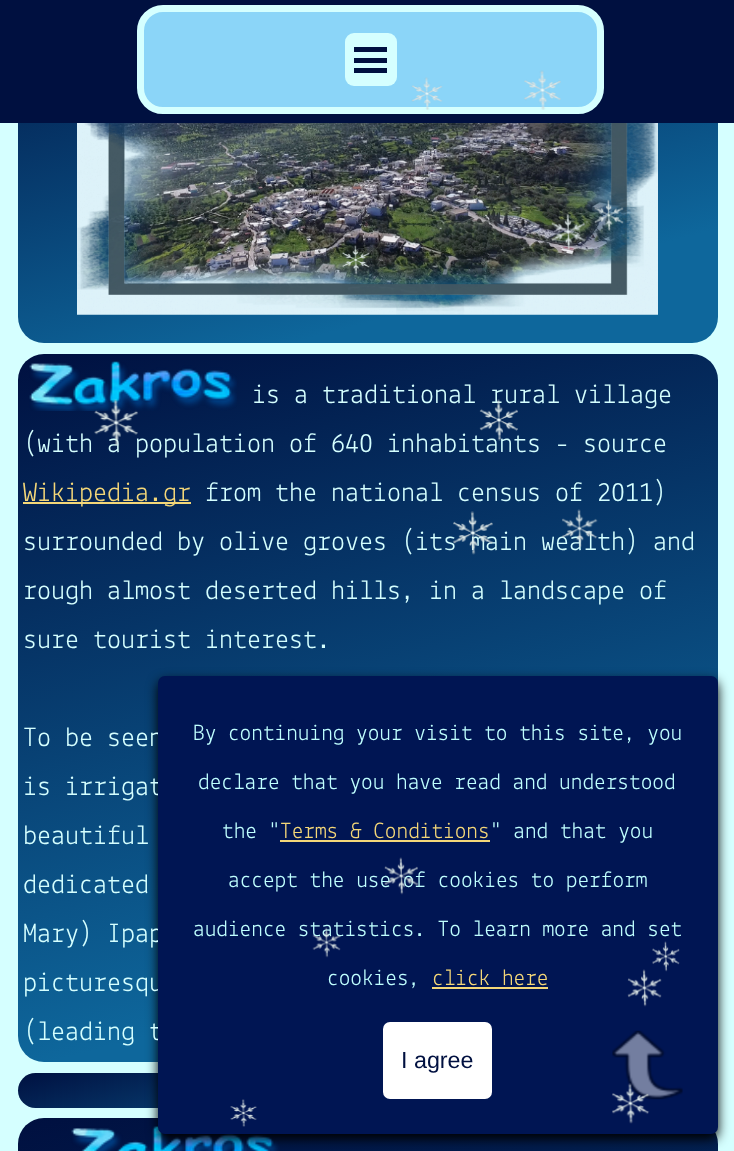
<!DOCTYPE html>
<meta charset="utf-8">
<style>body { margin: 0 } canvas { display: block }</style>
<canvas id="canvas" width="734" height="1151"></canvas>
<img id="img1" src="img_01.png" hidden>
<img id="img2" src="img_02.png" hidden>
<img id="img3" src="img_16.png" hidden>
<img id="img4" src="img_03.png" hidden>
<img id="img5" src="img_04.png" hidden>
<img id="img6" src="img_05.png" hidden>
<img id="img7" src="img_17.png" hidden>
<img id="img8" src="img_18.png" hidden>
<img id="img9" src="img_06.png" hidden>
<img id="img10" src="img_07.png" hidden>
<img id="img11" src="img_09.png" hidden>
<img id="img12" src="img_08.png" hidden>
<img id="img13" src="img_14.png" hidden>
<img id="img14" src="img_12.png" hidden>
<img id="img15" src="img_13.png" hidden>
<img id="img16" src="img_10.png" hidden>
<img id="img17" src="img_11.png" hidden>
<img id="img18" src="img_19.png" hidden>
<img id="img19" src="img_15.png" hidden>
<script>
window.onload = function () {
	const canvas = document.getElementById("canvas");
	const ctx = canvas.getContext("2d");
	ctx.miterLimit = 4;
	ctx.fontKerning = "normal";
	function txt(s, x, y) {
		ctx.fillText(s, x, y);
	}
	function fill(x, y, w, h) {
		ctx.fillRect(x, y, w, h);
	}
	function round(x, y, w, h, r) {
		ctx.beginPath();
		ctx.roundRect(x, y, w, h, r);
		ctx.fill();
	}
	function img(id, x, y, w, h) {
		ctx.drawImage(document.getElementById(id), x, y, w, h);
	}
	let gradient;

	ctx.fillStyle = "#D5FFFF";
	fill(0, 0, 734, 1151);
	gradient = ctx.createLinearGradient(296, -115, 439, 418);
	gradient.addColorStop(0, "#001040");
	gradient.addColorStop(0.8, "#0E679C");
	ctx.fillStyle = gradient;
	round(18, -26, 700, 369, 26);
	ctx.fillStyle = "#001040";
	fill(0, 0, 734, 123);
	ctx.fillStyle = "#8BD5F8";
	ctx.beginPath();
	ctx.roundRect(140.5, 8.5, 460, 102, 22.5);
	ctx.fill();
	ctx.strokeStyle = "#D5FFFF";
	ctx.lineWidth = 7;
	ctx.stroke();
	img("img1", 411, 77, 32, 33);
	img("img2", 524, 70, 37, 40);
	img("img3", 77, 123, 581, 192);
	img("img4", 551, 213, 34, 37);
	img("img5", 594, 199, 30, 32);
	img("img6", 341, 245, 29, 30);
	ctx.fillStyle = "#D5FFFF";
	round(345, 33, 52, 53, 9);
	ctx.fillStyle = "#001040";
	fill(354, 47, 33, 5);
	fill(354, 58, 33, 5);
	fill(354, 68, 33, 5);
	gradient = ctx.createLinearGradient(255, 290, 480, 1126);
	gradient.addColorStop(0, "#001040");
	gradient.addColorStop(0.8, "#0E679C");
	ctx.fillStyle = gradient;
	round(18, 354, 700, 708, 26);
	img("img7", 29, 361, 208, 50);
	ctx.fillStyle = "#F4D778";
	fill(23, 502, 168, 2);
	gradient = ctx.createLinearGradient(340, 986, 395, 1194);
	gradient.addColorStop(0, "#001040");
	gradient.addColorStop(0.8, "#0E679C");
	ctx.fillStyle = gradient;
	round(18, 1073, 700, 35, 17.5);
	gradient = ctx.createLinearGradient(180, 1075, 555, 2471);
	gradient.addColorStop(0, "#001040");
	gradient.addColorStop(0.8, "#0E679C");
	ctx.fillStyle = gradient;
	round(18, 1118, 700, 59, 26);
	img("img8", 71, 1126, 209, 25);
	ctx.fillStyle = "#000000";
	ctx.filter = "blur(6px)";
	ctx.beginPath();
	ctx.roundRect(158, 681, 560, 458, 7);
	ctx.fill();
	ctx.filter = "none";
	ctx.font = "28px Lekton";
	ctx.fillStyle = "#D5FFFF";
	txt("is a traditional rural village", 252, 403);
	txt("(with a population of 640 inhabitants - source", 23, 452);
	img("img9", 94, 399, 45, 47);
	img("img10", 479, 399, 39, 42);
	ctx.fillStyle = "#F4D778";
	txt("Wikipedia.gr", 23, 501);
	ctx.fillStyle = "#D5FFFF";
	txt("from the national census of 2011)", 205, 501);
	txt("surrounded by olive groves (its main wealth) and", 23, 550);
	img("img11", 562, 509, 36, 39);
	img("img12", 452, 511, 41, 44);
	txt("rough almost deserted hills, in a landscape of", 23, 599);
	txt("sure tourist interest.", 23, 648);
	txt("To be seen", 23, 746);
	txt("is irrigat", 23, 795);
	txt("beautiful", 23, 844);
	txt("dedicated", 23, 893);
	txt("Mary) Ipap", 23, 942);
	txt("picturesqu", 23, 991);
	txt("(leading t", 23, 1040);
	ctx.fillStyle = "#001553";
	round(158, 676, 560, 458, 7);
	img("img13", 230, 1099, 27, 28);
	img("img14", 652, 941, 28, 31);
	img("img15", 627, 969, 35, 38);
	ctx.font = "23.3px Lekton";
	ctx.fillStyle = "#BFFFFF";
	txt("By continuing your visit to this site, you", 193, 740);
	txt("declare that you have read and understood", 198, 789);
	txt("the \"", 222, 838);
	ctx.fillStyle = "#F4D778";
	txt("Terms & Conditions", 280, 838);
	ctx.fillStyle = "#BFFFFF";
	txt("\" and that you", 490, 838);
	ctx.fillStyle = "#F4D778";
	fill(280, 840, 210, 2);
	ctx.fillStyle = "#BFFFFF";
	txt("accept the use of cookies to perform", 228, 887);
	img("img16", 384, 857, 34, 38);
	txt("audience statistics. To learn more and set", 193, 936);
	img("img17", 312, 927, 29, 31);
	txt("cookies,", 327, 985);
	ctx.fillStyle = "#F4D778";
	txt("click here", 432, 985);
	fill(432, 987, 116, 2);
	ctx.fillStyle = "#FFFFFF";
	round(383, 1022, 109, 77, 7);
	ctx.font = "23.3px Liberation Sans";
	ctx.fillStyle = "#001040";
	txt("I agree", 401, 1068);
	img("img18", 612, 1030, 71, 70);
	img("img19", 612, 1083, 38, 41);
};
</script>
